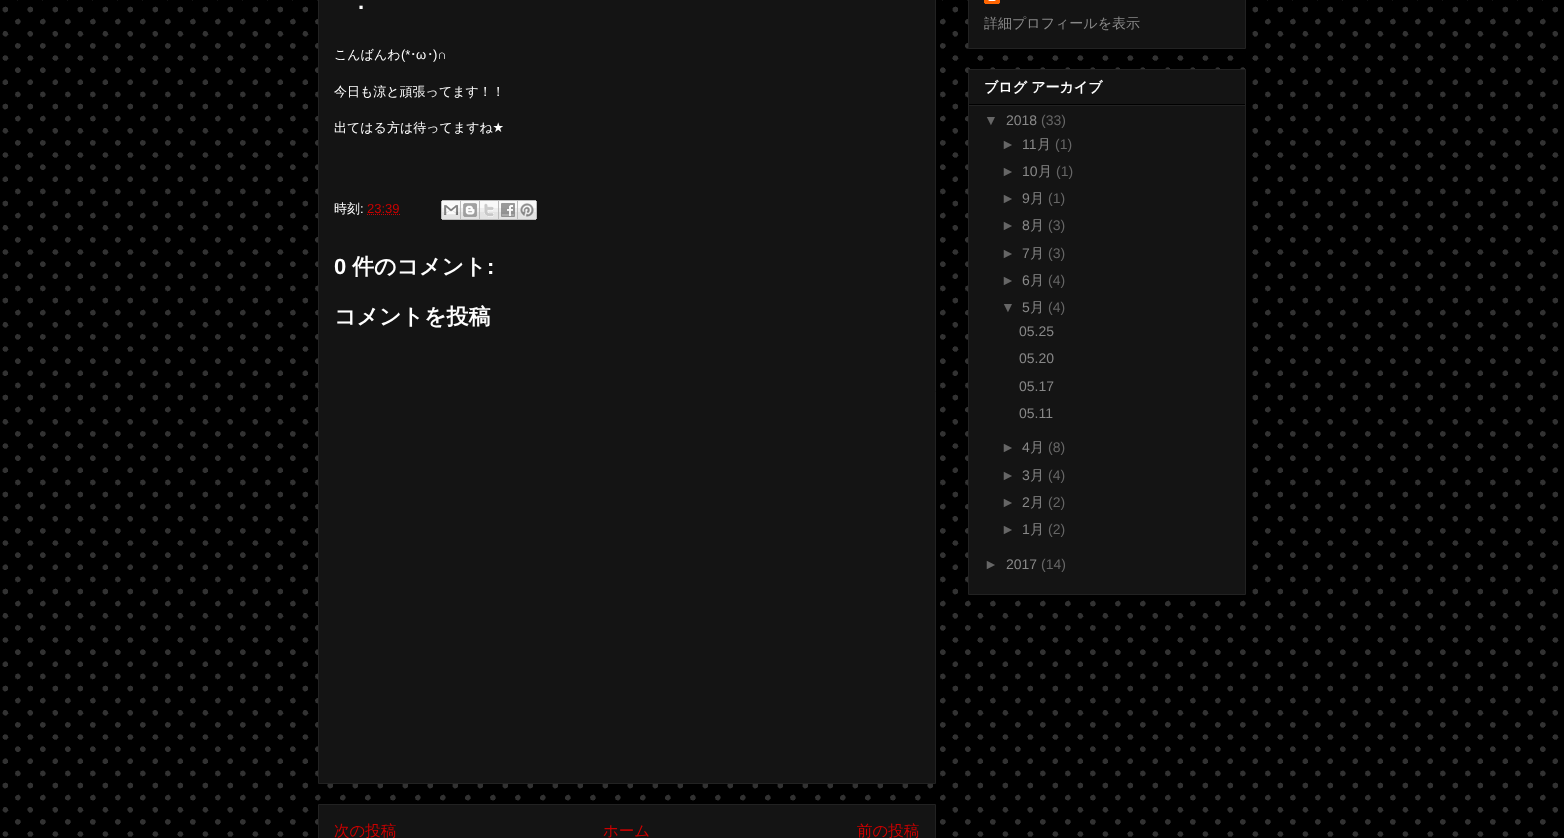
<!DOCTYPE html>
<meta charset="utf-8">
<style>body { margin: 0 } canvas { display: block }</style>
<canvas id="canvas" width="1564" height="838"></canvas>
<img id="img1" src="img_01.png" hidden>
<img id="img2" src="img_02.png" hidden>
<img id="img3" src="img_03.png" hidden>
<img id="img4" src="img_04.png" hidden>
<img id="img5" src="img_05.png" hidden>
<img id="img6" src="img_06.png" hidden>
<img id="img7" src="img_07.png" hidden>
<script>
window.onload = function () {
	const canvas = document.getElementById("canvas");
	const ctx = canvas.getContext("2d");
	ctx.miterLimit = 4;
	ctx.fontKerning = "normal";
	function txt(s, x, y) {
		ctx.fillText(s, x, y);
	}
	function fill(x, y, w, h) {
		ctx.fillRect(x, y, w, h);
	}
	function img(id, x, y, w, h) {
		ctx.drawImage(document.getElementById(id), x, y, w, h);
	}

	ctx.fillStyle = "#000000";
	fill(0, 0, 1564, 838);
	img("img1", 2, 0, 1557, 837);
	ctx.fillStyle = "#141414";
	ctx.beginPath();
	ctx.rect(318.5, -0.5, 617, 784);
	ctx.fill();
	ctx.strokeStyle = "#222222";
	ctx.stroke();
	ctx.beginPath();
	ctx.moveTo(367, 214.5);
	ctx.lineTo(400, 214.5);
	ctx.strokeStyle = "#CC0000";
	ctx.setLineDash([1, 1]);
	ctx.stroke();
	img("img2", 441, 200, 20, 20);
	img("img3", 461, 200, 19, 20);
	img("img4", 480, 200, 19, 20);
	img("img5", 499, 200, 19, 20);
	img("img6", 518, 200, 19, 20);
	ctx.beginPath();
	ctx.rect(318.5, 804.5, 617, 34);
	ctx.fill();
	ctx.strokeStyle = "#222222";
	ctx.setLineDash([]);
	ctx.stroke();
	ctx.beginPath();
	ctx.rect(968.5, -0.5, 277, 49);
	ctx.fill();
	ctx.stroke();
	img("img7", 984, 0, 16, 4);
	ctx.beginPath();
	ctx.rect(968.5, 69.5, 277, 525);
	ctx.fill();
	ctx.stroke();
	ctx.fillStyle = "#000000";
	fill(969, 104, 276, 1);
	ctx.fillStyle = "#222222";
	fill(969, 105, 276, 1);
	ctx.font = "bold 22px Liberation Sans";
	ctx.fillStyle = "#FFFFFF";
	txt(".", 358, 9);
	ctx.font = "500 13px WenQuanYi Zen Hei";
	txt("こんばんわ", 334, 59);
	ctx.font = "13px Liberation Sans";
	txt("(*", 401, 59);
	ctx.font = "13px IPAPGothic";
	txt("･", 410, 59);
	ctx.font = "13px Liberation Sans";
	txt("ω", 416, 59);
	ctx.font = "13px IPAPGothic";
	txt("･", 427, 59);
	ctx.font = "13px Liberation Sans";
	txt(")∩", 433, 59);
	ctx.font = "500 13px WenQuanYi Zen Hei";
	txt("今日も涼と頑張ってます！！", 334, 96);
	txt("出てはる方は待ってますね", 334, 132);
	ctx.font = "13px FreeSans";
	txt("★", 493, 132);
	ctx.font = "500 13px WenQuanYi Zen Hei";
	txt("時刻", 334, 213);
	ctx.font = "13px Liberation Sans";
	txt(":", 360, 213);
	ctx.fillStyle = "#CC0000";
	txt("23:39", 367, 213);
	ctx.font = "bold 22px Liberation Sans";
	ctx.fillStyle = "#FFFFFF";
	txt("0", 334, 274);
	ctx.font = "bold 22px WenQuanYi Zen Hei";
	txt("件のコメント", 352, 274);
	ctx.font = "bold 22px Liberation Sans";
	txt(":", 487, 274);
	ctx.font = "bold 22px WenQuanYi Zen Hei";
	txt("コメントを投稿", 334, 324);
	ctx.font = "500 15.5px WenQuanYi Zen Hei";
	ctx.fillStyle = "#CC0000";
	txt("次の投稿", 334, 836);
	txt("ホーム", 603, 836);
	txt("前の投稿", 857, 836);
	ctx.font = "500 14px WenQuanYi Zen Hei";
	ctx.fillStyle = "#888888";
	txt("詳細プロフィールを表示", 984, 28);
	ctx.font = "bold 14px WenQuanYi Zen Hei";
	ctx.fillStyle = "#FFFFFF";
	txt("ブログ アーカイブ", 984, 92);
	ctx.font = "14px Liberation Sans";
	ctx.fillStyle = "#666666";
	txt("▼", 984, 125);
	ctx.fillStyle = "#888888";
	txt("2018", 1006, 125);
	ctx.fillStyle = "#666666";
	txt("(33)", 1041, 125);
	txt("►", 1001, 149);
	ctx.fillStyle = "#888888";
	txt("11", 1022, 149);
	ctx.font = "500 14px WenQuanYi Zen Hei";
	txt("月", 1037, 149);
	ctx.font = "14px Liberation Sans";
	ctx.fillStyle = "#666666";
	txt("(1)", 1055, 149);
	txt("►", 1001, 176);
	ctx.fillStyle = "#888888";
	txt("10", 1022, 176);
	ctx.font = "500 14px WenQuanYi Zen Hei";
	txt("月", 1038, 176);
	ctx.font = "14px Liberation Sans";
	ctx.fillStyle = "#666666";
	txt("(1)", 1056, 176);
	txt("►", 1001, 203);
	ctx.fillStyle = "#888888";
	txt("9", 1022, 203);
	ctx.font = "500 14px WenQuanYi Zen Hei";
	txt("月", 1030, 203);
	ctx.font = "14px Liberation Sans";
	ctx.fillStyle = "#666666";
	txt("(1)", 1048, 203);
	txt("►", 1001, 230);
	ctx.fillStyle = "#888888";
	txt("8", 1022, 230);
	ctx.font = "500 14px WenQuanYi Zen Hei";
	txt("月", 1030, 230);
	ctx.font = "14px Liberation Sans";
	ctx.fillStyle = "#666666";
	txt("(3)", 1048, 230);
	txt("►", 1001, 258);
	ctx.fillStyle = "#888888";
	txt("7", 1022, 258);
	ctx.font = "500 14px WenQuanYi Zen Hei";
	txt("月", 1030, 258);
	ctx.font = "14px Liberation Sans";
	ctx.fillStyle = "#666666";
	txt("(3)", 1048, 258);
	txt("►", 1001, 285);
	ctx.fillStyle = "#888888";
	txt("6", 1022, 285);
	ctx.font = "500 14px WenQuanYi Zen Hei";
	txt("月", 1030, 285);
	ctx.font = "14px Liberation Sans";
	ctx.fillStyle = "#666666";
	txt("(4)", 1048, 285);
	txt("▼", 1001, 312);
	ctx.fillStyle = "#888888";
	txt("5", 1022, 312);
	ctx.font = "500 14px WenQuanYi Zen Hei";
	txt("月", 1030, 312);
	ctx.font = "14px Liberation Sans";
	ctx.fillStyle = "#666666";
	txt("(4)", 1048, 312);
	ctx.fillStyle = "#888888";
	txt("05.25", 1019, 336);
	txt("05.20", 1019, 363);
	txt("05.17", 1019, 391);
	txt("05.11", 1019, 418);
	ctx.fillStyle = "#666666";
	txt("►", 1001, 452);
	ctx.fillStyle = "#888888";
	txt("4", 1022, 452);
	ctx.font = "500 14px WenQuanYi Zen Hei";
	txt("月", 1030, 452);
	ctx.font = "14px Liberation Sans";
	ctx.fillStyle = "#666666";
	txt("(8)", 1048, 452);
	txt("►", 1001, 480);
	ctx.fillStyle = "#888888";
	txt("3", 1022, 480);
	ctx.font = "500 14px WenQuanYi Zen Hei";
	txt("月", 1030, 480);
	ctx.font = "14px Liberation Sans";
	ctx.fillStyle = "#666666";
	txt("(4)", 1048, 480);
	txt("►", 1001, 507);
	ctx.fillStyle = "#888888";
	txt("2", 1022, 507);
	ctx.font = "500 14px WenQuanYi Zen Hei";
	txt("月", 1030, 507);
	ctx.font = "14px Liberation Sans";
	ctx.fillStyle = "#666666";
	txt("(2)", 1048, 507);
	txt("►", 1001, 534);
	ctx.fillStyle = "#888888";
	txt("1", 1022, 534);
	ctx.font = "500 14px WenQuanYi Zen Hei";
	txt("月", 1030, 534);
	ctx.font = "14px Liberation Sans";
	ctx.fillStyle = "#666666";
	txt("(2)", 1048, 534);
	txt("►", 984, 569);
	ctx.fillStyle = "#888888";
	txt("2017", 1006, 569);
	ctx.fillStyle = "#666666";
	txt("(14)", 1041, 569);
};
</script>
